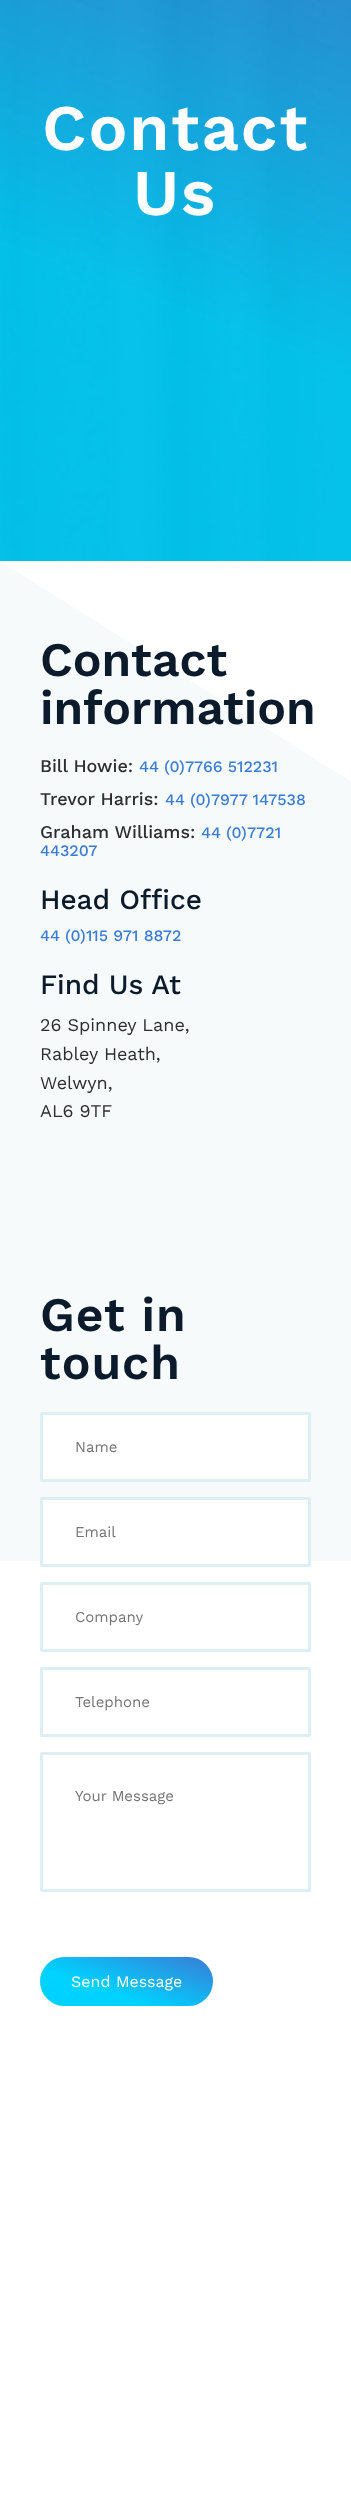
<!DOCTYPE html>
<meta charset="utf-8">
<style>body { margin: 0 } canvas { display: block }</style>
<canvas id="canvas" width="351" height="2496"></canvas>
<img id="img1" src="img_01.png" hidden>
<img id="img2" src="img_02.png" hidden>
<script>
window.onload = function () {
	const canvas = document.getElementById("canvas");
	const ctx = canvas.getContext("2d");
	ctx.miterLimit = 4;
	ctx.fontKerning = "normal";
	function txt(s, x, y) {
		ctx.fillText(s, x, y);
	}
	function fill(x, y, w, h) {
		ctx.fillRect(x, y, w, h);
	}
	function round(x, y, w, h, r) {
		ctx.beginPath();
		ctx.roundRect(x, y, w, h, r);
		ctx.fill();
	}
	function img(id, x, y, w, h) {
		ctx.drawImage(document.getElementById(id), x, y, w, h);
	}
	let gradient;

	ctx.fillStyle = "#FFFFFF";
	fill(0, 0, 351, 2496);
	img("img1", 0, 0, 351, 561);
	img("img2", 0, 561, 351, 1000);
	ctx.beginPath();
	ctx.roundRect(41.5, 1413.5, 268, 67, 0.5);
	ctx.fill();
	ctx.strokeStyle = "#DCEFF4";
	ctx.lineWidth = 3;
	ctx.stroke();
	ctx.beginPath();
	ctx.roundRect(41.5, 1498.5, 268, 67, 0.5);
	ctx.fill();
	ctx.stroke();
	ctx.beginPath();
	ctx.roundRect(41.5, 1583.5, 268, 67, 0.5);
	ctx.stroke();
	ctx.beginPath();
	ctx.roundRect(41.5, 1668.5, 268, 67, 0.5);
	ctx.stroke();
	ctx.beginPath();
	ctx.roundRect(41.5, 1753.5, 268, 137, 0.5);
	ctx.stroke();
	gradient = ctx.createLinearGradient(109, 2031, 144, 1932);
	gradient.addColorStop(0.35, "#00D2FF");
	gradient.addColorStop(1, "#3A7BD5");
	ctx.fillStyle = gradient;
	round(40, 1957, 173, 49, 24.5);
	ctx.letterSpacing = "2px";
	ctx.font = "600 65px Work Sans";
	ctx.fillStyle = "#FFFFFF";
	txt("Contact", 42, 150);
	txt("Us", 133, 215);
	ctx.letterSpacing = "0px";
	ctx.font = "600 48px Work Sans";
	ctx.fillStyle = "#0B1B2C";
	txt("Contact", 40, 676);
	txt("information", 40, 724);
	ctx.font = "500 18px Work Sans";
	ctx.fillStyle = "#2E2E2E";
	txt("Bill Howie:", 40, 772);
	ctx.font = "500 16px Work Sans";
	ctx.fillStyle = "#3A7BD5";
	txt("44 (0)7766 512231", 139, 772);
	ctx.font = "500 18px Work Sans";
	ctx.fillStyle = "#2E2E2E";
	txt("Trevor Harris:", 40, 805);
	ctx.font = "500 16px Work Sans";
	ctx.fillStyle = "#3A7BD5";
	txt("44 (0)7977 147538", 165, 805);
	ctx.font = "500 18px Work Sans";
	ctx.fillStyle = "#2E2E2E";
	txt("Graham Williams:", 40, 838);
	ctx.font = "500 16px Work Sans";
	ctx.fillStyle = "#3A7BD5";
	txt("44 (0)7721", 201, 838);
	txt("443207", 40, 856);
	ctx.font = "500 28px Work Sans";
	ctx.fillStyle = "#0B1B2C";
	txt("Head Office", 40, 909);
	ctx.font = "500 16px Work Sans";
	ctx.fillStyle = "#3A7BD5";
	txt("44 (0)115 971 8872", 40, 941);
	ctx.font = "500 28px Work Sans";
	ctx.fillStyle = "#0B1B2C";
	txt("Find Us At", 40, 994);
	ctx.font = "18px Work Sans";
	ctx.fillStyle = "#2E2E2E";
	txt("26 Spinney Lane,", 40, 1031);
	txt("Rabley Heath,", 40, 1060);
	txt("Welwyn,", 40, 1089);
	txt("AL6 9TF", 40, 1117);
	ctx.letterSpacing = "1px";
	ctx.font = "600 48px Work Sans";
	ctx.fillStyle = "#0B1B2C";
	txt("Get in", 40, 1331);
	txt("touch", 40, 1379);
	ctx.letterSpacing = "0px";
	ctx.font = "15px Work Sans";
	ctx.fillStyle = "#757575";
	txt("Name", 75, 1452);
	txt("Email", 75, 1537);
	txt("Company", 75, 1622);
	txt("Telephone", 75, 1707);
	txt("Your Message", 75, 1801);
	ctx.font = "16px Work Sans";
	ctx.fillStyle = "#FFFFFF";
	txt("Send Message", 71, 1987);
};
</script>
